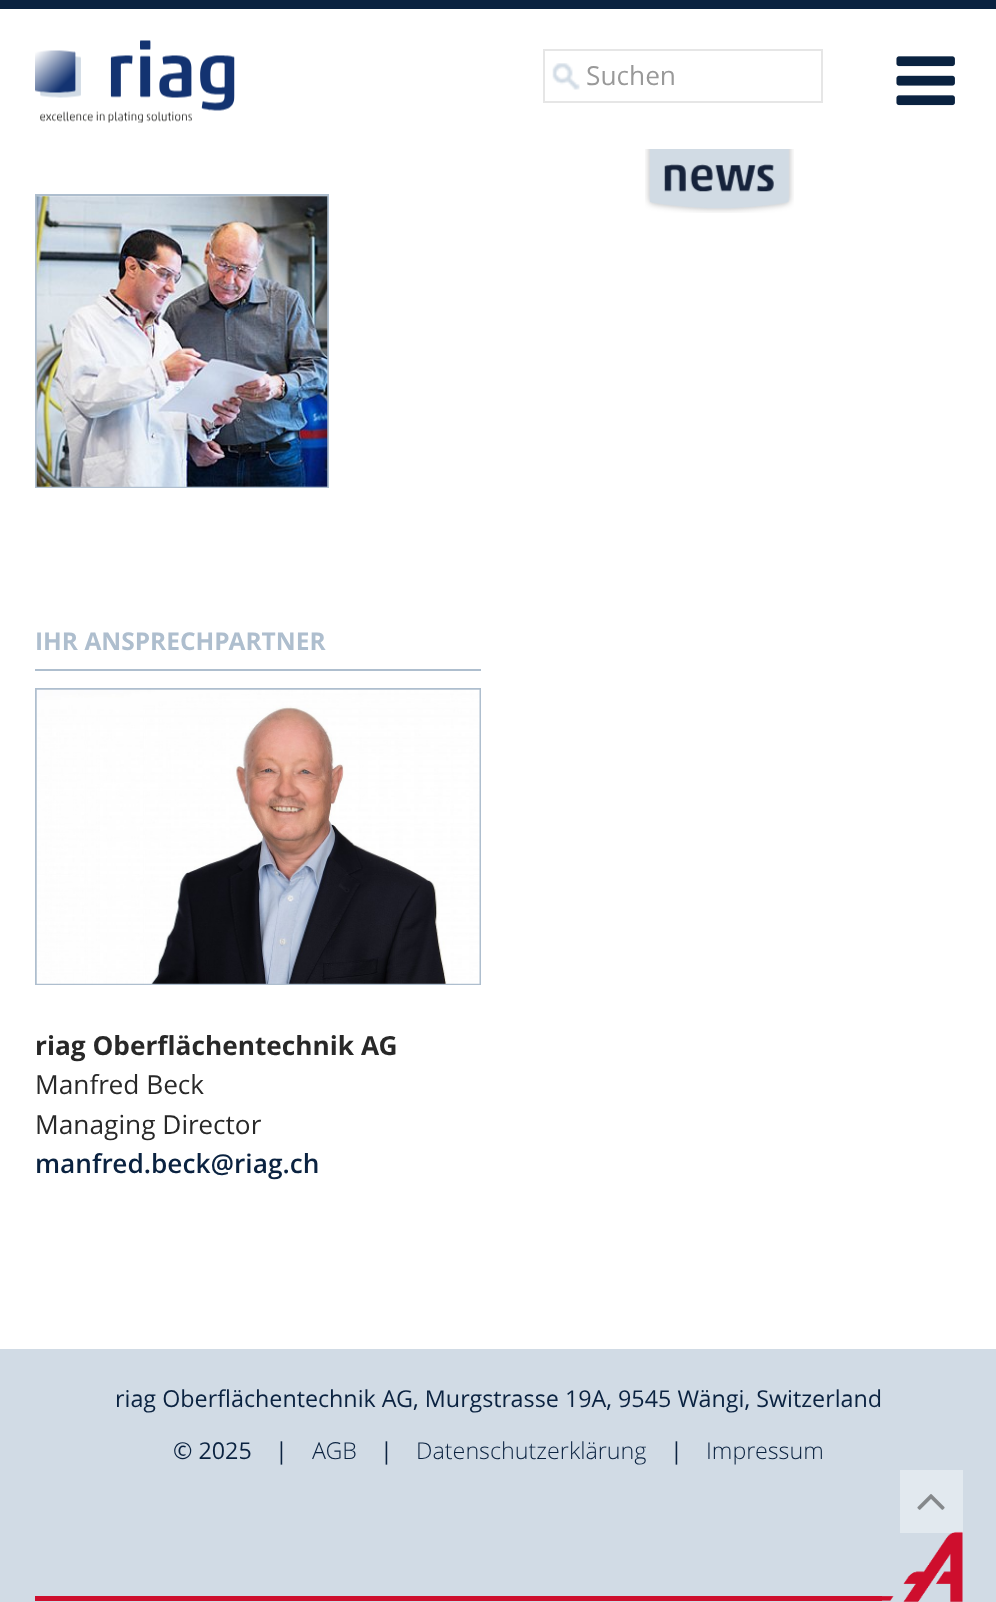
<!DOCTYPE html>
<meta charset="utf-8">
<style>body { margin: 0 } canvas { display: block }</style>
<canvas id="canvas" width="996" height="1602"></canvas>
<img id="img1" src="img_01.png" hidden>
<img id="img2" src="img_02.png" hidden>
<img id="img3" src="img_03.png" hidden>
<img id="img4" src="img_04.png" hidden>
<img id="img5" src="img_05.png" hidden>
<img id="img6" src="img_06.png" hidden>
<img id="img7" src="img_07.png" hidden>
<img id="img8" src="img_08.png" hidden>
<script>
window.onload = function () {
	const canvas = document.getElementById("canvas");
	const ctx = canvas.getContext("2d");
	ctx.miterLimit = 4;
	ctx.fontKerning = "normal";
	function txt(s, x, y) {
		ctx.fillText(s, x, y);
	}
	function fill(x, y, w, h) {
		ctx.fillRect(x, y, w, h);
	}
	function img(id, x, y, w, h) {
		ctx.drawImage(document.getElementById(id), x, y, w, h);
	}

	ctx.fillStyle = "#FFFFFF";
	fill(0, 0, 996, 1602);
	ctx.fillStyle = "#0A2240";
	fill(0, 0, 996, 9);
	img("img1", 35, 40, 200, 83);
	img("img2", 552, 63, 28, 27);
	ctx.strokeStyle = "#E6E6E6";
	ctx.lineWidth = 2;
	ctx.strokeRect(544, 50, 278, 52);
	img("img3", 896, 56, 59, 50);
	img("img4", 645, 149, 149, 64);
	ctx.strokeStyle = "#AEBECE";
	ctx.strokeRect(36, 195, 292, 292);
	img("img5", 36, 196, 292, 291);
	ctx.fillStyle = "#AEBECE";
	fill(35, 669, 446, 2);
	ctx.strokeRect(36, 689, 444, 295);
	img("img6", 36, 689, 444, 295);
	ctx.fillStyle = "#D1DBE5";
	fill(0, 1349, 996, 253);
	ctx.fillStyle = "#CE0E2D";
	fill(35, 1596, 847, 5);
	img("img7", 882, 1531, 81, 71);
	ctx.fillStyle = "rgba(255, 255, 255, 0.38)";
	fill(900, 1470, 63, 63);
	img("img8", 917, 1494, 28, 16);
	ctx.font = "26.25px Open Sans";
	ctx.fillStyle = "#999999";
	txt("Suchen", 586, 85);
	ctx.font = "bold 24.5px Open Sans";
	ctx.fillStyle = "#AEBECE";
	txt("IHR ANSPRECHPARTNER", 35, 650);
	ctx.font = "bold 26.25px Open Sans";
	ctx.fillStyle = "#282828";
	txt("riag Oberflächentechnik AG", 35, 1055);
	ctx.font = "26.25px Open Sans";
	txt("Manfred Beck", 35, 1094);
	txt("Managing Director", 35, 1134);
	ctx.font = "600 26.25px Open Sans";
	ctx.fillStyle = "#0A2240";
	txt("manfred.beck@riag.ch", 35, 1173);
	ctx.font = "23.3px Open Sans";
	txt("riag Oberflächentechnik AG, Murgstrasse 19A, 9545 Wängi, Switzerland", 115, 1407);
	txt("© 2025", 173, 1459);
	txt("|", 275, 1459);
	ctx.font = "300 23.3px Open Sans";
	txt("AGB", 312, 1459);
	ctx.font = "23.3px Open Sans";
	txt("|", 380, 1459);
	ctx.font = "300 23.3px Open Sans";
	txt("Datenschutzerklärung", 416, 1459);
	ctx.font = "23.3px Open Sans";
	txt("|", 670, 1459);
	ctx.font = "300 23.3px Open Sans";
	txt("Impressum", 706, 1459);
};
</script>
